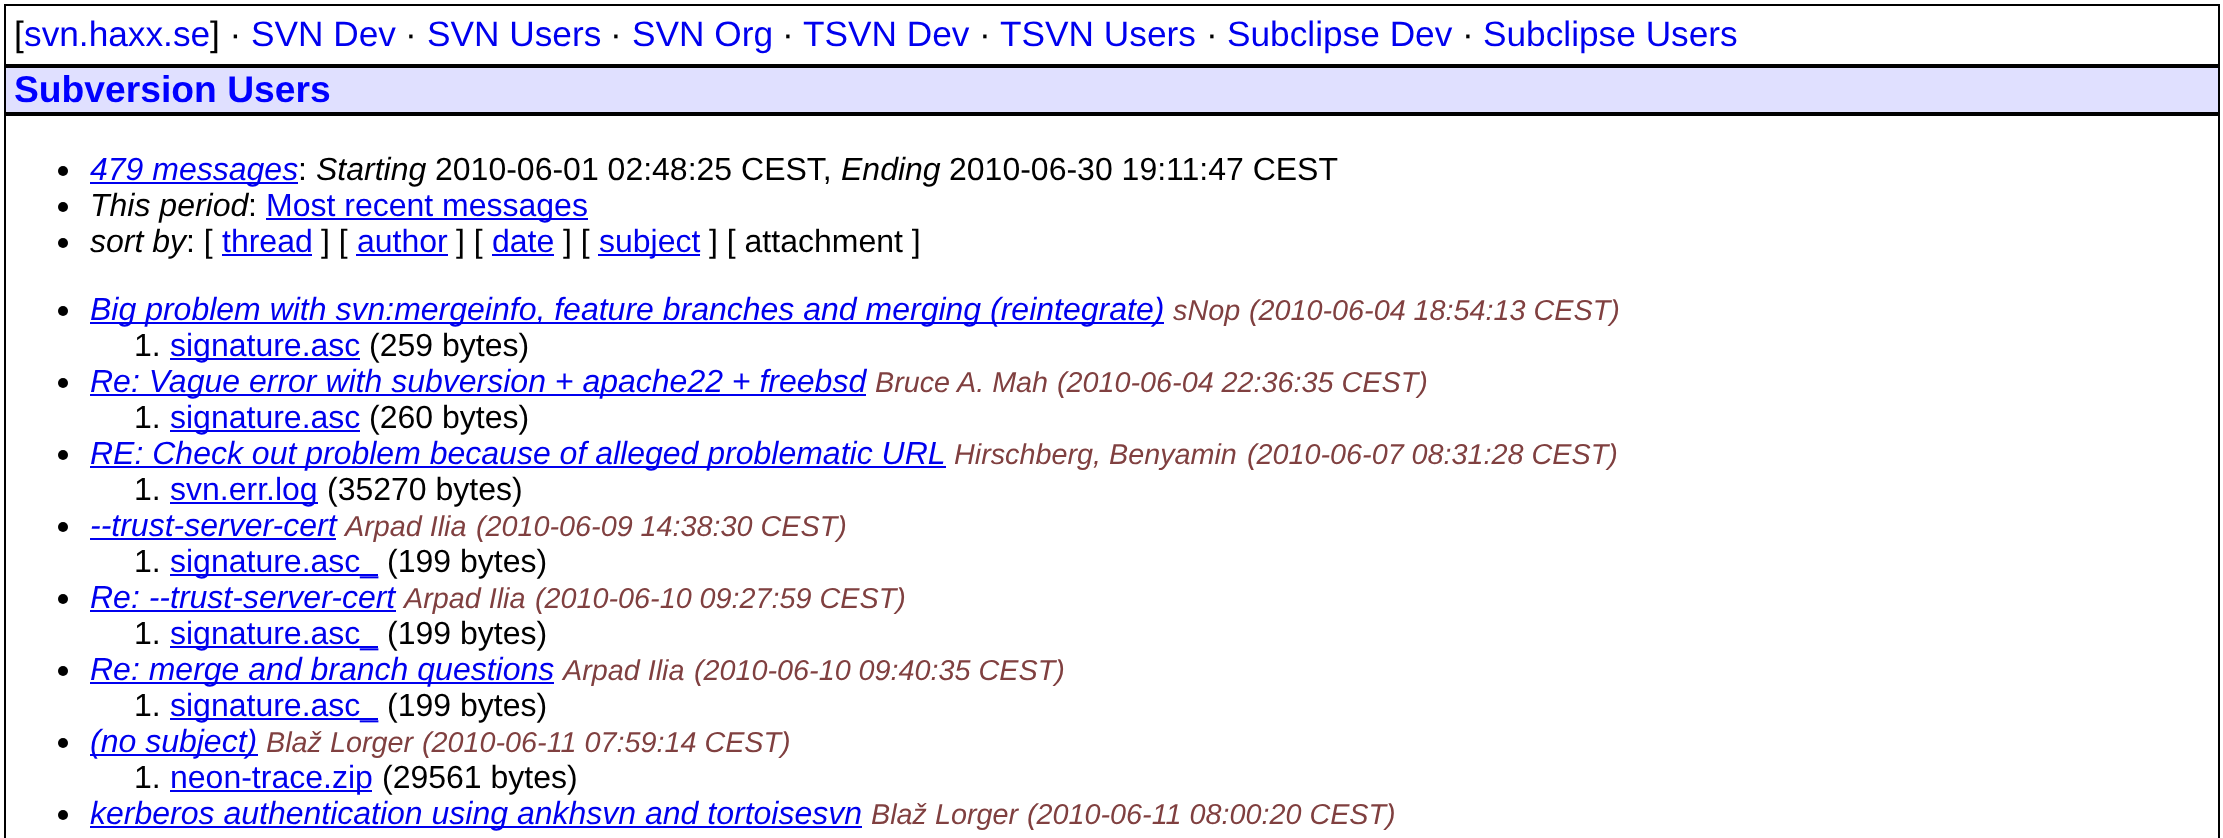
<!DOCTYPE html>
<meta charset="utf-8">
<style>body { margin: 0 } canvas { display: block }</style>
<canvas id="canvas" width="2223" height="838"></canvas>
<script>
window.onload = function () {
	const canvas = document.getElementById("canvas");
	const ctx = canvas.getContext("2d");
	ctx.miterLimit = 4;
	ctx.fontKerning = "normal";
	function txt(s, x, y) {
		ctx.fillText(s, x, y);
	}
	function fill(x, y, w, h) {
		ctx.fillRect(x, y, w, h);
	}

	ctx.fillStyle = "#FFFFFF";
	fill(0, 0, 2223, 838);
	ctx.strokeStyle = "#000000";
	ctx.lineWidth = 2;
	ctx.strokeRect(5, 5, 2214, 60);
	ctx.fillStyle = "#E0E0FF";
	ctx.beginPath();
	ctx.rect(5, 67, 2214, 46);
	ctx.fill();
	ctx.stroke();
	ctx.strokeRect(5, 115, 2214, 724);
	ctx.fillStyle = "#000000";
	ctx.beginPath();
	ctx.arc(63, 171, 5, 0, Math.PI * 2);
	ctx.fill();
	ctx.fillStyle = "#0000EE";
	fill(90, 182, 208, 2);
	ctx.fillStyle = "#000000";
	ctx.beginPath();
	ctx.arc(63, 207, 5, 0, Math.PI * 2);
	ctx.fill();
	ctx.fillStyle = "#0000EE";
	fill(266, 218, 322, 2);
	ctx.fillStyle = "#000000";
	ctx.beginPath();
	ctx.arc(63, 243, 5, 0, Math.PI * 2);
	ctx.fill();
	ctx.fillStyle = "#0000EE";
	fill(222, 254, 90, 2);
	fill(356, 254, 92, 2);
	fill(492, 254, 62, 2);
	fill(598, 254, 102, 2);
	ctx.fillStyle = "#000000";
	ctx.beginPath();
	ctx.arc(63, 311, 5, 0, Math.PI * 2);
	ctx.fill();
	ctx.fillStyle = "#0000EE";
	fill(90, 322, 1074, 2);
	fill(170, 358, 190, 2);
	ctx.fillStyle = "#000000";
	ctx.beginPath();
	ctx.arc(63, 383, 5, 0, Math.PI * 2);
	ctx.fill();
	ctx.fillStyle = "#0000EE";
	fill(90, 394, 776, 2);
	fill(170, 430, 190, 2);
	ctx.fillStyle = "#000000";
	ctx.beginPath();
	ctx.arc(63, 455, 5, 0, Math.PI * 2);
	ctx.fill();
	ctx.fillStyle = "#0000EE";
	fill(90, 466, 856, 2);
	fill(170, 502, 148, 2);
	ctx.fillStyle = "#000000";
	ctx.beginPath();
	ctx.arc(63, 527, 5, 0, Math.PI * 2);
	ctx.fill();
	ctx.fillStyle = "#0000EE";
	fill(90, 538, 246, 2);
	fill(170, 574, 208, 2);
	ctx.fillStyle = "#000000";
	ctx.beginPath();
	ctx.arc(63, 599, 5, 0, Math.PI * 2);
	ctx.fill();
	ctx.fillStyle = "#0000EE";
	fill(90, 610, 306, 2);
	fill(170, 646, 208, 2);
	ctx.fillStyle = "#000000";
	ctx.beginPath();
	ctx.arc(63, 671, 5, 0, Math.PI * 2);
	ctx.fill();
	ctx.fillStyle = "#0000EE";
	fill(90, 682, 464, 2);
	fill(170, 718, 208, 2);
	ctx.fillStyle = "#000000";
	ctx.beginPath();
	ctx.arc(63, 743, 5, 0, Math.PI * 2);
	ctx.fill();
	ctx.fillStyle = "#0000EE";
	fill(90, 754, 168, 2);
	fill(170, 790, 202, 2);
	ctx.fillStyle = "#000000";
	ctx.beginPath();
	ctx.arc(63, 815, 5, 0, Math.PI * 2);
	ctx.fill();
	ctx.fillStyle = "#0000EE";
	fill(90, 826, 772, 2);
	ctx.font = "35.25px Liberation Sans";
	ctx.fillStyle = "#000000";
	txt("[", 14, 46);
	ctx.fillStyle = "#0000EE";
	txt("svn.haxx.se", 24, 46);
	ctx.fillStyle = "#000000";
	txt("] ·", 210, 46);
	ctx.fillStyle = "#0000EE";
	txt("SVN Dev", 251, 46);
	ctx.fillStyle = "#000000";
	txt("·", 405, 46);
	ctx.fillStyle = "#0000EE";
	txt("SVN Users", 427, 46);
	ctx.fillStyle = "#000000";
	txt("·", 610, 46);
	ctx.fillStyle = "#0000EE";
	txt("SVN Org", 632, 46);
	ctx.fillStyle = "#000000";
	txt("·", 782, 46);
	ctx.fillStyle = "#0000EE";
	txt("TSVN Dev", 803, 46);
	ctx.fillStyle = "#000000";
	txt("·", 979, 46);
	ctx.fillStyle = "#0000EE";
	txt("TSVN Users", 1000, 46);
	ctx.fillStyle = "#000000";
	txt("·", 1206, 46);
	ctx.fillStyle = "#0000EE";
	txt("Subclipse Dev", 1227, 46);
	ctx.fillStyle = "#000000";
	txt("·", 1462, 46);
	ctx.fillStyle = "#0000EE";
	txt("Subclipse Users", 1483, 46);
	ctx.font = "bold 37.25px Liberation Sans";
	ctx.fillStyle = "#0000FF";
	txt("Subversion Users", 14, 102);
	ctx.font = "italic 32px Liberation Sans";
	ctx.fillStyle = "#0000EE";
	txt("479 messages", 90, 180);
	ctx.font = "32px Liberation Sans";
	ctx.fillStyle = "#000000";
	txt(":", 298, 180);
	ctx.font = "italic 32px Liberation Sans";
	txt("Starting", 316, 180);
	ctx.font = "32px Liberation Sans";
	txt("2010-06-01 02:48:25 CEST,", 435, 180);
	ctx.font = "italic 32px Liberation Sans";
	txt("Ending", 841, 180);
	ctx.font = "32px Liberation Sans";
	txt("2010-06-30 19:11:47 CEST", 949, 180);
	ctx.font = "italic 32px Liberation Sans";
	txt("This period", 90, 216);
	ctx.font = "32px Liberation Sans";
	txt(":", 248, 216);
	ctx.fillStyle = "#0000EE";
	txt("Most recent messages", 266, 216);
	ctx.font = "italic 32px Liberation Sans";
	ctx.fillStyle = "#000000";
	txt("sort by", 90, 252);
	ctx.font = "32px Liberation Sans";
	txt(": [", 186, 252);
	ctx.fillStyle = "#0000EE";
	txt("thread", 222, 252);
	ctx.fillStyle = "#000000";
	txt("] [", 321, 252);
	ctx.fillStyle = "#0000EE";
	txt("author", 357, 252);
	ctx.fillStyle = "#000000";
	txt("] [", 456, 252);
	ctx.fillStyle = "#0000EE";
	txt("date", 492, 252);
	ctx.fillStyle = "#000000";
	txt("] [", 563, 252);
	ctx.fillStyle = "#0000EE";
	txt("subject", 599, 252);
	ctx.fillStyle = "#000000";
	txt("] [ attachment ]", 709, 252);
	ctx.font = "italic 32px Liberation Sans";
	ctx.fillStyle = "#0000EE";
	txt("Big problem with svn:mergeinfo, feature branches and merging (reintegrate)", 90, 320);
	ctx.font = "italic 28.75px Liberation Sans";
	ctx.fillStyle = "#804040";
	txt("sNop", 1173, 320);
	txt("(2010-06-04 18:54:13 CEST)", 1249, 320);
	ctx.font = "32px Liberation Sans";
	ctx.fillStyle = "#000000";
	txt("1.", 134, 356);
	ctx.fillStyle = "#0000EE";
	txt("signature.asc", 170, 356);
	ctx.fillStyle = "#000000";
	txt("(259 bytes)", 369, 356);
	ctx.font = "italic 32px Liberation Sans";
	ctx.fillStyle = "#0000EE";
	txt("Re: Vague error with subversion + apache22 + freebsd", 90, 392);
	ctx.font = "italic 28.75px Liberation Sans";
	ctx.fillStyle = "#804040";
	txt("Bruce A. Mah", 875, 392);
	txt("(2010-06-04 22:36:35 CEST)", 1057, 392);
	ctx.font = "32px Liberation Sans";
	ctx.fillStyle = "#000000";
	txt("1.", 134, 428);
	ctx.fillStyle = "#0000EE";
	txt("signature.asc", 170, 428);
	ctx.fillStyle = "#000000";
	txt("(260 bytes)", 369, 428);
	ctx.font = "italic 32px Liberation Sans";
	ctx.fillStyle = "#0000EE";
	txt("RE: Check out problem because of alleged problematic URL", 90, 464);
	ctx.font = "italic 28.75px Liberation Sans";
	ctx.fillStyle = "#804040";
	txt("Hirschberg, Benyamin", 954, 464);
	txt("(2010-06-07 08:31:28 CEST)", 1247, 464);
	ctx.font = "32px Liberation Sans";
	ctx.fillStyle = "#000000";
	txt("1.", 134, 500);
	ctx.fillStyle = "#0000EE";
	txt("svn.err.log", 170, 500);
	ctx.fillStyle = "#000000";
	txt("(35270 bytes)", 327, 500);
	ctx.font = "italic 32px Liberation Sans";
	ctx.fillStyle = "#0000EE";
	txt("--trust-server-cert", 90, 536);
	ctx.font = "italic 28.75px Liberation Sans";
	ctx.fillStyle = "#804040";
	txt("Arpad Ilia", 345, 536);
	txt("(2010-06-09 14:38:30 CEST)", 476, 536);
	ctx.font = "32px Liberation Sans";
	ctx.fillStyle = "#000000";
	txt("1.", 134, 572);
	ctx.fillStyle = "#0000EE";
	txt("signature.asc_", 170, 572);
	ctx.fillStyle = "#000000";
	txt("(199 bytes)", 387, 572);
	ctx.font = "italic 32px Liberation Sans";
	ctx.fillStyle = "#0000EE";
	txt("Re: --trust-server-cert", 90, 608);
	ctx.font = "italic 28.75px Liberation Sans";
	ctx.fillStyle = "#804040";
	txt("Arpad Ilia", 404, 608);
	txt("(2010-06-10 09:27:59 CEST)", 535, 608);
	ctx.font = "32px Liberation Sans";
	ctx.fillStyle = "#000000";
	txt("1.", 134, 644);
	ctx.fillStyle = "#0000EE";
	txt("signature.asc_", 170, 644);
	ctx.fillStyle = "#000000";
	txt("(199 bytes)", 387, 644);
	ctx.font = "italic 32px Liberation Sans";
	ctx.fillStyle = "#0000EE";
	txt("Re: merge and branch questions", 90, 680);
	ctx.font = "italic 28.75px Liberation Sans";
	ctx.fillStyle = "#804040";
	txt("Arpad Ilia", 563, 680);
	txt("(2010-06-10 09:40:35 CEST)", 694, 680);
	ctx.font = "32px Liberation Sans";
	ctx.fillStyle = "#000000";
	txt("1.", 134, 716);
	ctx.fillStyle = "#0000EE";
	txt("signature.asc_", 170, 716);
	ctx.fillStyle = "#000000";
	txt("(199 bytes)", 387, 716);
	ctx.font = "italic 32px Liberation Sans";
	ctx.fillStyle = "#0000EE";
	txt("(no subject)", 90, 752);
	ctx.font = "italic 28.75px Liberation Sans";
	ctx.fillStyle = "#804040";
	txt("Blaž Lorger", 266, 752);
	txt("(2010-06-11 07:59:14 CEST)", 422, 752);
	ctx.font = "32px Liberation Sans";
	ctx.fillStyle = "#000000";
	txt("1.", 134, 788);
	ctx.fillStyle = "#0000EE";
	txt("neon-trace.zip", 170, 788);
	ctx.fillStyle = "#000000";
	txt("(29561 bytes)", 382, 788);
	ctx.font = "italic 32px Liberation Sans";
	ctx.fillStyle = "#0000EE";
	txt("kerberos authentication using ankhsvn and tortoisesvn", 90, 824);
	ctx.font = "italic 28.75px Liberation Sans";
	ctx.fillStyle = "#804040";
	txt("Blaž Lorger", 871, 824);
	txt("(2010-06-11 08:00:20 CEST)", 1027, 824);
};
</script>
